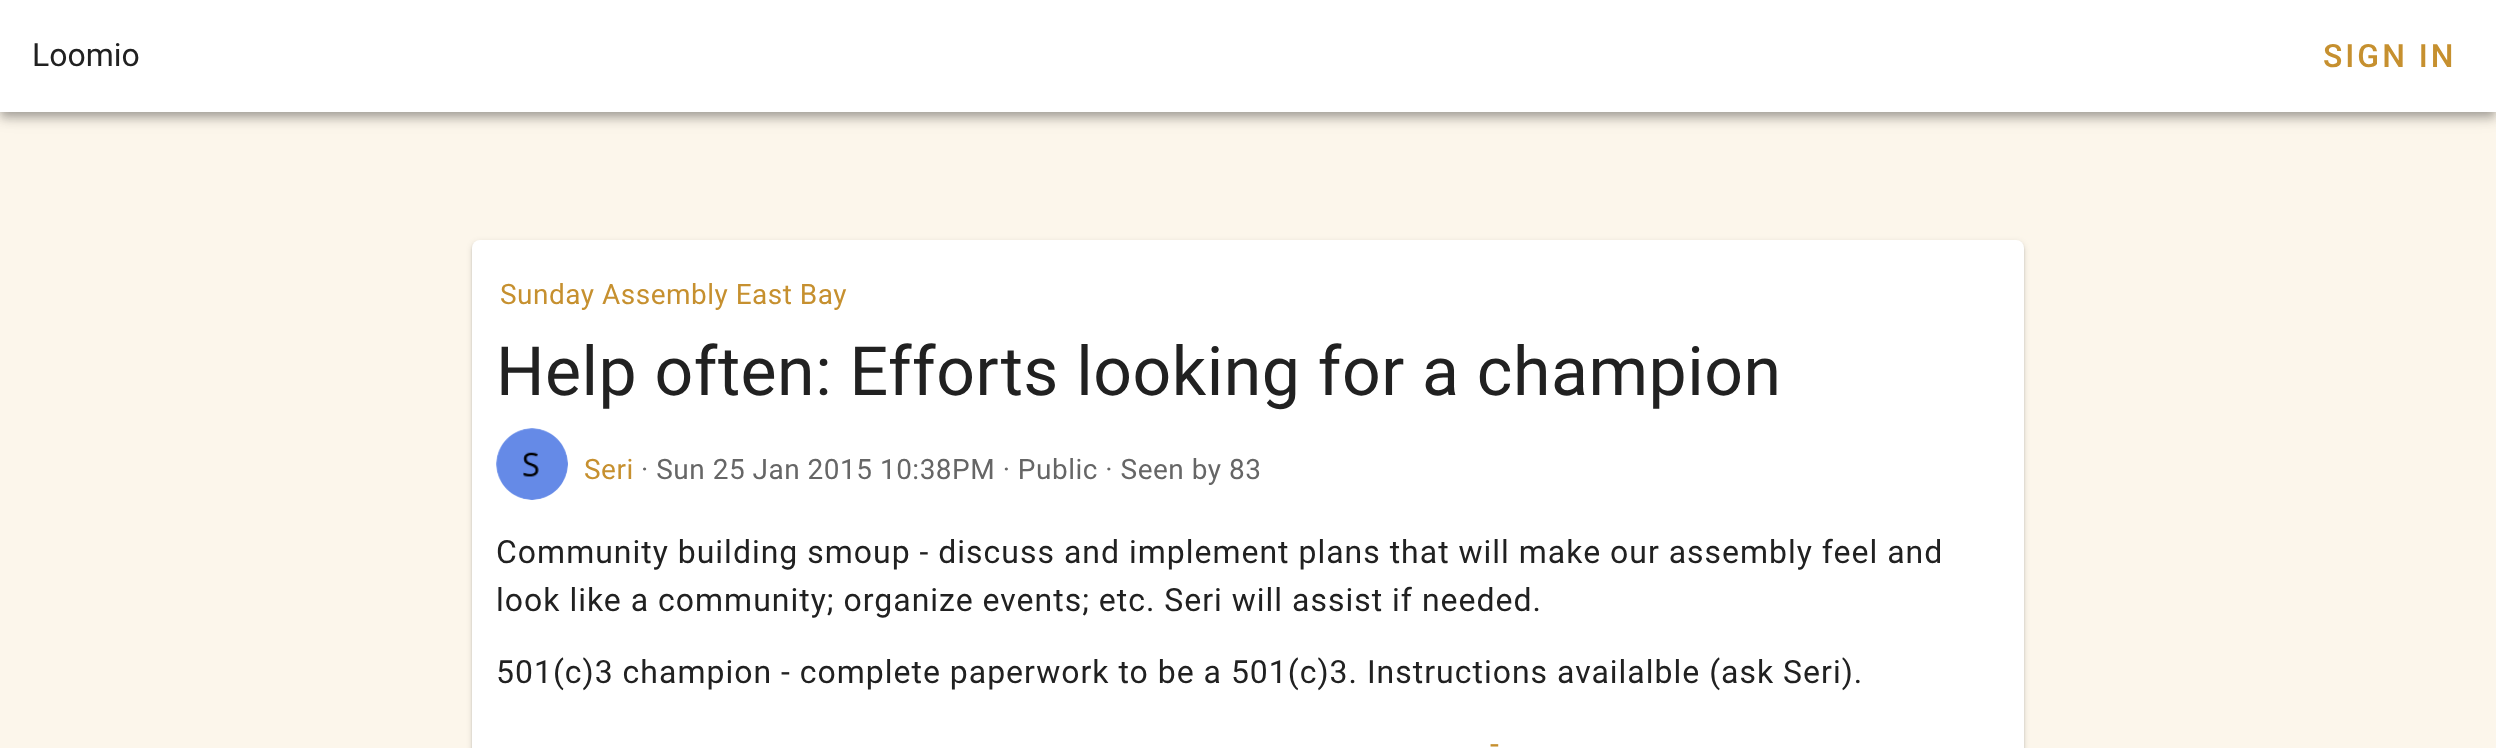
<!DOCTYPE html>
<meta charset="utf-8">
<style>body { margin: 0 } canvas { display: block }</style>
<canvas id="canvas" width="2496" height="748"></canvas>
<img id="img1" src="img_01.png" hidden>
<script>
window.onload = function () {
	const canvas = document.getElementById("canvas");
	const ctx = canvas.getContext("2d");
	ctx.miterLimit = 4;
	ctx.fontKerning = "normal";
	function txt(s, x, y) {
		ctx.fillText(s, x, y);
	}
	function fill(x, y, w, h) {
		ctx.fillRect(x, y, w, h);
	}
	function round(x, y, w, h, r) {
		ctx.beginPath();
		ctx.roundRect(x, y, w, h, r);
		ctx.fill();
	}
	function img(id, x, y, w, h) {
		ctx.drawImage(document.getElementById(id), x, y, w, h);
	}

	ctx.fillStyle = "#FCF6EB";
	fill(0, 0, 2496, 748);
	ctx.fillStyle = "rgba(0, 0, 0, 0.12)";
	ctx.filter = "blur(10px)";
	ctx.beginPath();
	ctx.rect(0, 2, 2496, 112);
	ctx.fill();
	ctx.filter = "none";
	ctx.fillStyle = "rgba(0, 0, 0, 0.14)";
	ctx.filter = "blur(5px)";
	ctx.beginPath();
	ctx.rect(0, 8, 2496, 112);
	ctx.fill();
	ctx.filter = "none";
	ctx.fillStyle = "rgba(0, 0, 0, 0.2)";
	ctx.filter = "blur(4px)";
	ctx.beginPath();
	ctx.rect(2, 6, 2492, 108);
	ctx.fill();
	ctx.filter = "none";
	ctx.fillStyle = "#FFFFFF";
	fill(0, 0, 2496, 112);
	ctx.fillStyle = "rgba(0, 0, 0, 0.12)";
	ctx.filter = "blur(3px)";
	ctx.beginPath();
	ctx.roundRect(472, 242, 1552, 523, 8);
	ctx.fill();
	ctx.filter = "none";
	ctx.fillStyle = "rgba(0, 0, 0, 0.14)";
	ctx.filter = "blur(1px)";
	ctx.beginPath();
	ctx.roundRect(472, 242, 1552, 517, 8);
	ctx.fill();
	ctx.filter = "none";
	ctx.fillStyle = "#FFFFFF";
	round(472, 240, 1552, 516, 8);
	img("img1", 496, 428, 72, 72);
	ctx.font = "32px Roboto";
	ctx.fillStyle = "#212121";
	txt("Loomio", 32, 66);
	ctx.letterSpacing = "3px";
	ctx.font = "500 32px Roboto";
	ctx.fillStyle = "#C6902F";
	txt("SIGN IN", 2323, 67);
	ctx.letterSpacing = "0.5px";
	ctx.font = "28px Roboto";
	txt("Sunday Assembly East Bay", 500, 304);
	ctx.font = "68px Roboto";
	ctx.fillStyle = "#212121";
	txt("Help often: Efforts looking for a champion", 496, 395);
	ctx.font = "28px Roboto";
	ctx.fillStyle = "#C6902F";
	txt("Seri", 584, 479);
	ctx.fillStyle = "#666666";
	txt("· Sun 25 Jan 2015 10:38PM · Public · Seen by 83", 641, 479);
	ctx.letterSpacing = "1px";
	ctx.font = "32px Roboto";
	ctx.fillStyle = "#212121";
	txt("Community building smoup - discuss and implement plans that will make our assembly feel and", 496, 563);
	txt("look like a community; organize events; etc. Seri will assist if needed.", 496, 611);
	txt("501(c)3 champion - complete paperwork to be a 501(c)3. Instructions availalble (ask Seri).", 496, 683);
	ctx.fillStyle = "#C6902F";
	txt("-", 1490, 755);
};
</script>
